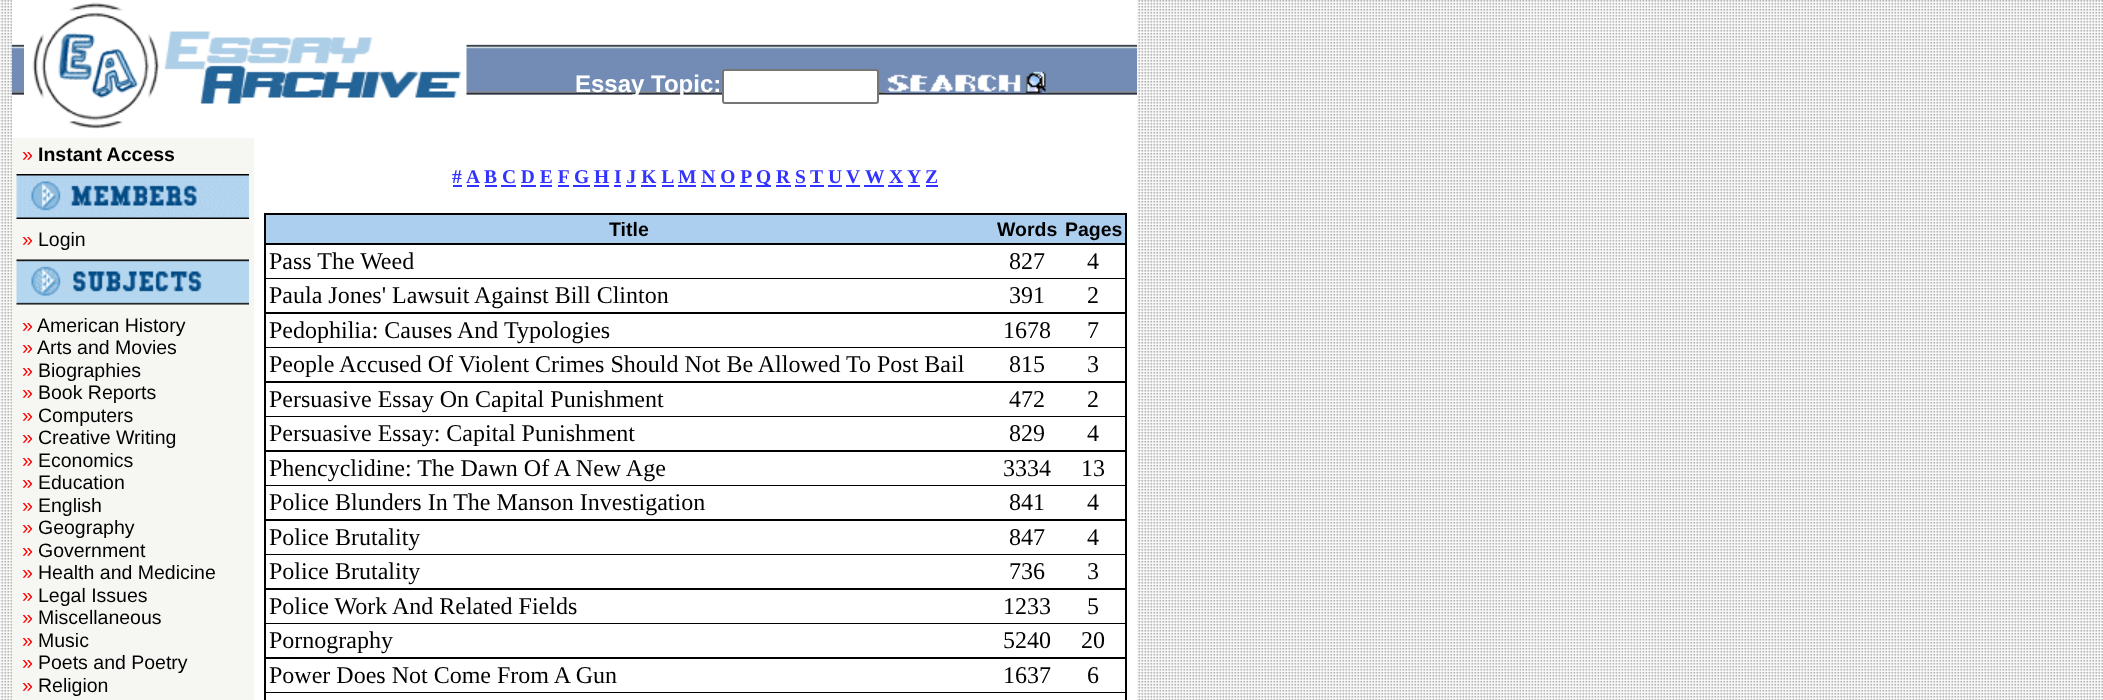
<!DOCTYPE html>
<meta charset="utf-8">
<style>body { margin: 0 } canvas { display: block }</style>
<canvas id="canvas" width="2103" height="700"></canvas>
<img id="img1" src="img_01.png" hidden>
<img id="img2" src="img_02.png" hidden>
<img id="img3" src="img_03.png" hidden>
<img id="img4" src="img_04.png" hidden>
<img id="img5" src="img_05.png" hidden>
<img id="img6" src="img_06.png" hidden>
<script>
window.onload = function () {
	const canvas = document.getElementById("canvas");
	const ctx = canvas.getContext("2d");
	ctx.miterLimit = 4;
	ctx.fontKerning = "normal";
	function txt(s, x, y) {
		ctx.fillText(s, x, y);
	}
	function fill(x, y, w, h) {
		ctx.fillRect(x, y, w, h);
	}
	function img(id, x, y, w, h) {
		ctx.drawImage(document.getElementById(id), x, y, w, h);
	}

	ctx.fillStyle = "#FFFFFF";
	fill(0, 0, 2103, 700);
	img("img1", 0, 0, 2103, 700);
	fill(12, 0, 1125, 138);
	img("img2", 12, 44, 1125, 51);
	img("img3", 24, 2, 443, 127);
	ctx.beginPath();
	ctx.roundRect(723, 70, 155, 33, 2);
	ctx.fill();
	ctx.strokeStyle = "#767676";
	ctx.lineWidth = 2;
	ctx.stroke();
	img("img4", 885, 71, 162, 22);
	fill(254, 138, 883, 562);
	ctx.fillStyle = "#F6F7F3";
	fill(12, 138, 242, 562);
	img("img5", 16, 174, 233, 45);
	img("img6", 16, 259, 233, 46);
	ctx.fillStyle = "#3333FF";
	fill(453, 185, 9, 2);
	fill(467, 185, 12, 2);
	fill(485, 185, 12, 2);
	fill(501, 185, 15, 2);
	fill(521, 185, 15, 2);
	fill(540, 185, 12, 2);
	fill(558, 185, 11, 2);
	fill(573, 185, 17, 2);
	fill(594, 185, 15, 2);
	fill(614, 185, 7, 2);
	fill(626, 185, 10, 2);
	fill(641, 185, 15, 2);
	fill(662, 185, 12, 2);
	fill(678, 185, 18, 2);
	fill(701, 185, 15, 2);
	fill(720, 185, 15, 2);
	fill(740, 185, 12, 2);
	fill(756, 185, 15, 2);
	fill(776, 185, 15, 2);
	fill(795, 185, 11, 2);
	fill(810, 185, 14, 2);
	fill(828, 185, 14, 2);
	fill(846, 185, 14, 2);
	fill(864, 185, 20, 2);
	fill(888, 185, 15, 2);
	fill(908, 185, 12, 2);
	fill(926, 185, 12, 2);
	ctx.fillStyle = "#000000";
	fill(264, 213, 863, 487);
	ctx.fillStyle = "#ADCFEF";
	fill(266, 215, 859, 28);
	ctx.fillStyle = "#FFFFFF";
	fill(266, 245, 859, 33);
	fill(266, 279, 859, 33);
	fill(266, 314, 859, 33);
	fill(266, 348, 859, 33);
	fill(266, 383, 859, 33);
	fill(266, 417, 859, 33);
	fill(266, 452, 859, 33);
	fill(266, 486, 859, 33);
	fill(266, 521, 859, 33);
	fill(266, 555, 859, 33);
	fill(266, 590, 859, 33);
	fill(266, 624, 859, 33);
	fill(266, 659, 859, 33);
	fill(266, 693, 859, 7);
	ctx.font = "bold 24px Liberation Sans";
	txt("Essay Topic:", 575, 92);
	ctx.font = "19.5px Liberation Sans";
	ctx.fillStyle = "#FF0000";
	txt("»", 22, 161);
	ctx.font = "bold 19.5px Liberation Sans";
	ctx.fillStyle = "#000000";
	txt("Instant Access", 38, 161);
	ctx.font = "19.5px Liberation Sans";
	ctx.fillStyle = "#FF0000";
	txt("»", 22, 246);
	ctx.fillStyle = "#000000";
	txt("Login", 38, 246);
	ctx.fillStyle = "#FF0000";
	txt("»", 22, 332);
	ctx.fillStyle = "#000000";
	txt("American History", 37, 332);
	ctx.fillStyle = "#FF0000";
	txt("»", 22, 354);
	ctx.fillStyle = "#000000";
	txt("Arts and Movies", 37, 354);
	ctx.fillStyle = "#FF0000";
	txt("»", 22, 377);
	ctx.fillStyle = "#000000";
	txt("Biographies", 38, 377);
	ctx.fillStyle = "#FF0000";
	txt("»", 22, 399);
	ctx.fillStyle = "#000000";
	txt("Book Reports", 38, 399);
	ctx.fillStyle = "#FF0000";
	txt("»", 22, 422);
	ctx.fillStyle = "#000000";
	txt("Computers", 38, 422);
	ctx.fillStyle = "#FF0000";
	txt("»", 22, 444);
	ctx.fillStyle = "#000000";
	txt("Creative Writing", 38, 444);
	ctx.fillStyle = "#FF0000";
	txt("»", 22, 467);
	ctx.fillStyle = "#000000";
	txt("Economics", 38, 467);
	ctx.fillStyle = "#FF0000";
	txt("»", 22, 489);
	ctx.fillStyle = "#000000";
	txt("Education", 38, 489);
	ctx.fillStyle = "#FF0000";
	txt("»", 22, 512);
	ctx.fillStyle = "#000000";
	txt("English", 38, 512);
	ctx.fillStyle = "#FF0000";
	txt("»", 22, 534);
	ctx.fillStyle = "#000000";
	txt("Geography", 38, 534);
	ctx.fillStyle = "#FF0000";
	txt("»", 22, 557);
	ctx.fillStyle = "#000000";
	txt("Government", 38, 557);
	ctx.fillStyle = "#FF0000";
	txt("»", 22, 579);
	ctx.fillStyle = "#000000";
	txt("Health and Medicine", 38, 579);
	ctx.fillStyle = "#FF0000";
	txt("»", 22, 602);
	ctx.fillStyle = "#000000";
	txt("Legal Issues", 38, 602);
	ctx.fillStyle = "#FF0000";
	txt("»", 22, 624);
	ctx.fillStyle = "#000000";
	txt("Miscellaneous", 38, 624);
	ctx.fillStyle = "#FF0000";
	txt("»", 22, 647);
	ctx.fillStyle = "#000000";
	txt("Music", 38, 647);
	ctx.fillStyle = "#FF0000";
	txt("»", 22, 669);
	ctx.fillStyle = "#000000";
	txt("Poets and Poetry", 38, 669);
	ctx.fillStyle = "#FF0000";
	txt("»", 22, 692);
	ctx.fillStyle = "#000000";
	txt("Religion", 38, 692);
	ctx.font = "bold 19.5px Liberation Serif";
	ctx.fillStyle = "#3333FF";
	txt("#", 452, 183);
	txt("A", 466, 183);
	txt("B C D E F", 484, 183);
	txt("G H I J K L", 574, 183);
	txt("M N O P", 678, 183);
	txt("Q R S", 756, 183);
	txt("T", 810, 183);
	txt("U", 828, 183);
	txt("V", 846, 183);
	txt("W", 865, 183);
	txt("X", 889, 183);
	txt("Y", 907, 183);
	txt("Z", 925, 183);
	ctx.font = "bold 19.5px Liberation Sans";
	ctx.fillStyle = "#000000";
	txt("Title", 609, 236);
	txt("Words", 997, 236);
	txt("Pages", 1065, 236);
	ctx.font = "24px Liberation Serif";
	txt("Pass The Weed", 269, 269);
	txt("827", 1009, 269);
	txt("4", 1087, 269);
	txt("Paula Jones' Lawsuit Against Bill Clinton", 269, 303);
	txt("391", 1009, 303);
	txt("2", 1087, 303);
	txt("Pedophilia: Causes And Typologies", 269, 338);
	txt("1678", 1003, 338);
	txt("7", 1087, 338);
	txt("People Accused Of Violent Crimes Should Not Be Allowed To Post Bail", 269, 372);
	txt("815", 1009, 372);
	txt("3", 1087, 372);
	txt("Persuasive Essay On Capital Punishment", 269, 407);
	txt("472", 1009, 407);
	txt("2", 1087, 407);
	txt("Persuasive Essay: Capital Punishment", 269, 441);
	txt("829", 1009, 441);
	txt("4", 1087, 441);
	txt("Phencyclidine: The Dawn Of A New Age", 269, 476);
	txt("3334", 1003, 476);
	txt("13", 1081, 476);
	txt("Police Blunders In The Manson Investigation", 269, 510);
	txt("841", 1009, 510);
	txt("4", 1087, 510);
	txt("Police Brutality", 269, 545);
	txt("847", 1009, 545);
	txt("4", 1087, 545);
	txt("Police Brutality", 269, 579);
	txt("736", 1009, 579);
	txt("3", 1087, 579);
	txt("Police Work And Related Fields", 269, 614);
	txt("1233", 1003, 614);
	txt("5", 1087, 614);
	txt("Pornography", 269, 648);
	txt("5240", 1003, 648);
	txt("20", 1081, 648);
	txt("Power Does Not Come From A Gun", 269, 683);
	txt("1637", 1003, 683);
	txt("6", 1087, 683);
};
</script>
